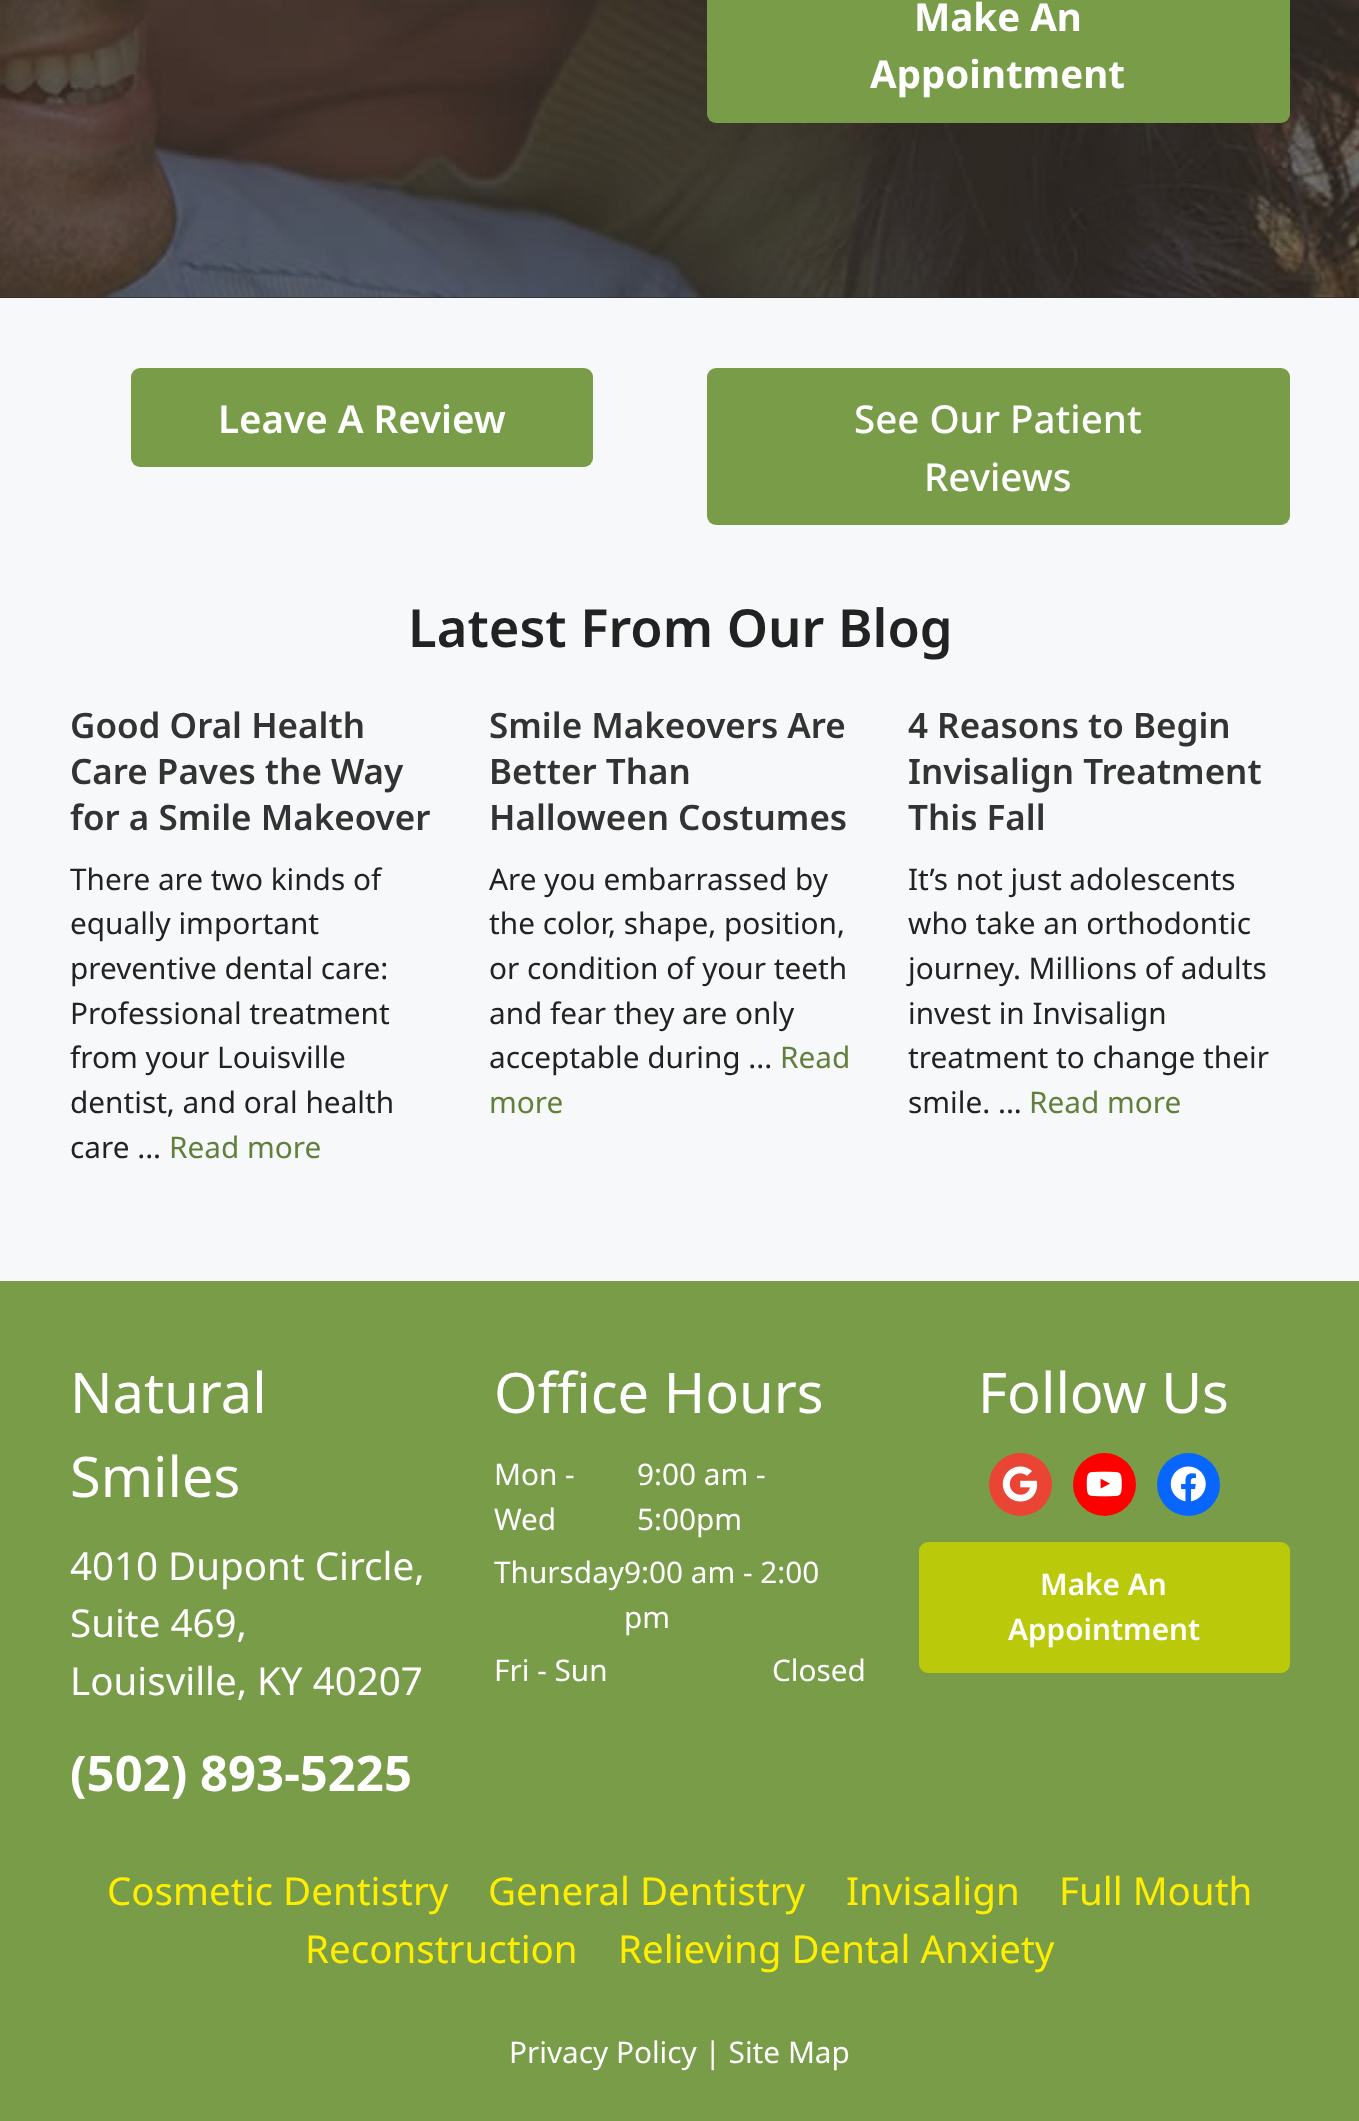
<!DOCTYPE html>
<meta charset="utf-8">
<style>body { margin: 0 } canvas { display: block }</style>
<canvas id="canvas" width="1359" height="2121"></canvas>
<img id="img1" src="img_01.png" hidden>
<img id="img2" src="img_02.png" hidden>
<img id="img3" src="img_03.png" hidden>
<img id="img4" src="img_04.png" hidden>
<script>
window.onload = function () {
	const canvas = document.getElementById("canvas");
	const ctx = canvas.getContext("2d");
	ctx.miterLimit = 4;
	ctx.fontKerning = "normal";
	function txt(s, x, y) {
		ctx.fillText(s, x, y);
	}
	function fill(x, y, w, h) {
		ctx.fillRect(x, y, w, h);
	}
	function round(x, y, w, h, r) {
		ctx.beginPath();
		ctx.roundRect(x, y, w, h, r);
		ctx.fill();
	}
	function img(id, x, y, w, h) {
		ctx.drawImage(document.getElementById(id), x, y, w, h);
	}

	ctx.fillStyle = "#F7F8F9";
	fill(0, 0, 1359, 2121);
	ctx.fillStyle = "#2C2C2C";
	fill(0, 297, 1359, 1);
	img("img1", 0, 0, 1359, 298);
	ctx.fillStyle = "#789C48";
	round(707, -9, 583, 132, 9);
	round(131, 368, 462, 99, 9);
	round(707, 368, 583, 157, 9);
	fill(0, 1281, 1359, 840);
	ctx.fillStyle = "#EA4434";
	ctx.beginPath();
	ctx.arc(1020.5, 1484.5, 31.5, 0, Math.PI * 2);
	ctx.fill();
	img("img2", 1002, 1466, 36, 36);
	ctx.fillStyle = "#FF0000";
	ctx.beginPath();
	ctx.arc(1104.5, 1484.5, 31.5, 0, Math.PI * 2);
	ctx.fill();
	img("img3", 1086, 1471, 36, 26);
	ctx.fillStyle = "#0866FF";
	ctx.beginPath();
	ctx.arc(1188.5, 1484.5, 31.5, 0, Math.PI * 2);
	ctx.fill();
	img("img4", 1170, 1466, 36, 36);
	ctx.fillStyle = "#BBC90B";
	round(919, 1542, 371, 131, 9);
	ctx.font = "bold 38.5px Noto Sans";
	ctx.fillStyle = "#FFFFFF";
	txt("Make An", 914, 31);
	txt("Appointment", 870, 88);
	ctx.font = "600 38.5px Noto Sans";
	txt("Leave A Review", 218, 433);
	ctx.font = "500 38.5px Noto Sans";
	txt("See Our Patient", 854, 433);
	txt("Reviews", 924, 491);
	ctx.font = "600 52.5px Noto Sans";
	ctx.fillStyle = "#222222";
	txt("Latest From Our Blog", 408, 647);
	ctx.font = "600 35px Noto Sans";
	ctx.fillStyle = "#333333";
	txt("Good Oral Health", 70, 738);
	txt("Care Paves the Way", 70, 784);
	txt("for a Smile Makeover", 70, 830);
	ctx.font = "29.75px Noto Sans";
	ctx.fillStyle = "#222222";
	txt("There are two kinds of", 70, 890);
	txt("equally important", 70, 934);
	txt("preventive dental care:", 70, 979);
	txt("Professional treatment", 70, 1024);
	txt("from your Louisville", 70, 1068);
	txt("dentist, and oral health", 70, 1113);
	txt("care ...", 70, 1158);
	ctx.fillStyle = "#627F3B";
	txt("Read more", 169, 1158);
	ctx.font = "600 35px Noto Sans";
	ctx.fillStyle = "#333333";
	txt("Smile Makeovers Are", 489, 738);
	txt("Better Than", 489, 784);
	txt("Halloween Costumes", 489, 830);
	ctx.font = "29.75px Noto Sans";
	ctx.fillStyle = "#222222";
	txt("Are you embarrassed by", 489, 890);
	txt("the color, shape, position,", 489, 934);
	txt("or condition of your teeth", 489, 979);
	txt("and fear they are only", 489, 1024);
	txt("acceptable during ...", 489, 1068);
	ctx.fillStyle = "#627F3B";
	txt("Read", 780, 1068);
	txt("more", 489, 1113);
	ctx.font = "600 35px Noto Sans";
	ctx.fillStyle = "#333333";
	txt("4 Reasons to Begin", 908, 738);
	txt("Invisalign Treatment", 908, 784);
	txt("This Fall", 908, 830);
	ctx.font = "29.75px Noto Sans";
	ctx.fillStyle = "#222222";
	txt("It’s not just adolescents", 908, 890);
	txt("who take an orthodontic", 908, 934);
	txt("journey. Millions of adults", 908, 979);
	txt("invest in Invisalign", 908, 1024);
	txt("treatment to change their", 908, 1068);
	txt("smile. ...", 908, 1113);
	ctx.fillStyle = "#627F3B";
	txt("Read more", 1029, 1113);
	ctx.font = "56px Noto Sans";
	ctx.fillStyle = "#FFFFFF";
	txt("Natural", 70, 1413);
	txt("Smiles", 70, 1497);
	ctx.font = "38.5px Noto Sans";
	txt("4010 Dupont Circle,", 70, 1580);
	txt("Suite 469,", 70, 1637);
	txt("Louisville, KY 40207", 70, 1695);
	ctx.font = "bold 49px Noto Sans";
	txt("(502) 893-5225", 70, 1791);
	ctx.font = "56px Noto Sans";
	txt("Office Hours", 494, 1413);
	ctx.font = "29.75px Noto Sans";
	txt("Mon -", 494, 1485);
	txt("9:00 am -", 637, 1485);
	txt("5:00pm", 637, 1530);
	txt("Wed", 494, 1530);
	txt("Thursday9:00 am - 2:00", 494, 1583);
	txt("pm", 624, 1628);
	txt("Fri - Sun", 494, 1681);
	txt("Closed", 772, 1681);
	ctx.font = "56px Noto Sans";
	txt("Follow Us", 978, 1413);
	ctx.font = "600 29.75px Noto Sans";
	txt("Make An", 1040, 1595);
	txt("Appointment", 1008, 1640);
	ctx.font = "38.5px Noto Sans";
	ctx.fillStyle = "#FFEE01";
	txt("Cosmetic Dentistry", 107, 1905);
	txt("General Dentistry", 488, 1905);
	txt("Invisalign", 846, 1905);
	txt("Full Mouth", 1059, 1905);
	txt("Reconstruction", 305, 1963);
	txt("Relieving Dental Anxiety", 618, 1963);
	ctx.font = "29.75px Noto Sans";
	ctx.fillStyle = "#FFFFFF";
	txt("Privacy Policy | Site Map", 509, 2063);
};
</script>
